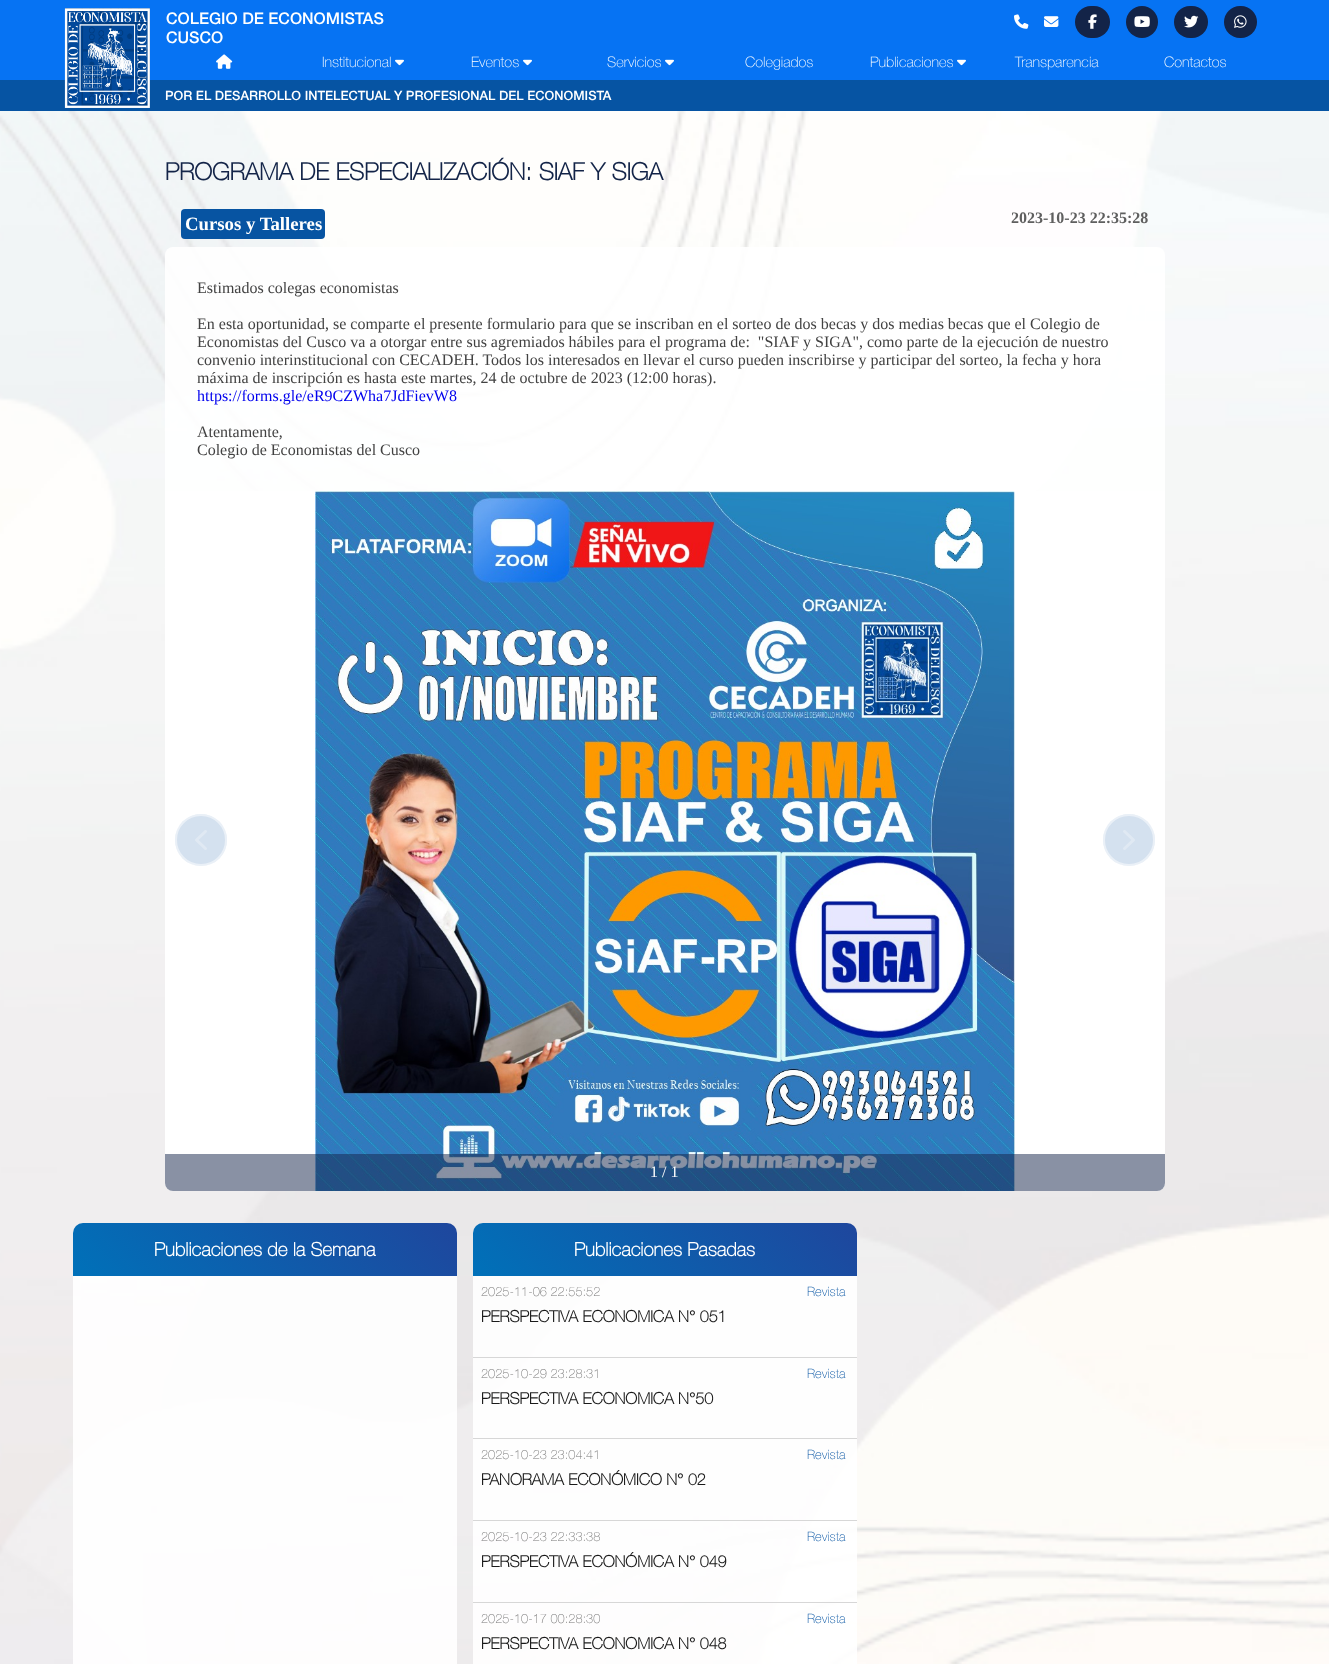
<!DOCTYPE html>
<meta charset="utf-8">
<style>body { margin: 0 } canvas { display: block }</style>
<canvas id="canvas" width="1329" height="1664"></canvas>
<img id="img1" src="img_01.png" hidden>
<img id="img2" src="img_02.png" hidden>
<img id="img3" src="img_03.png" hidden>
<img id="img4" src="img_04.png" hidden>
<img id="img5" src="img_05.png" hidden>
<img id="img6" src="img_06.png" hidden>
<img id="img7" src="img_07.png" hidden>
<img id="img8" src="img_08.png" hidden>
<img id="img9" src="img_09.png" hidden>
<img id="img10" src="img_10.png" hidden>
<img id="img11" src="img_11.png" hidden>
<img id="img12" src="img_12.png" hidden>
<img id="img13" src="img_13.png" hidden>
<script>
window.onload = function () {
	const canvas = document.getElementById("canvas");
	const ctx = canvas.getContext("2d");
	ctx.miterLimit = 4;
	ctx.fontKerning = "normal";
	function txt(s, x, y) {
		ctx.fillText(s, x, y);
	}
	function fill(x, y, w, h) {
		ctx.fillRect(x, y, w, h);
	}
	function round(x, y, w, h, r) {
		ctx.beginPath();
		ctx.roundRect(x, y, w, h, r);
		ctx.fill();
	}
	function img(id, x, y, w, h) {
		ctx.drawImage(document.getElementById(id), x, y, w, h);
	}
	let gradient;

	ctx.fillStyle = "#FFFFFF";
	fill(0, 0, 1329, 1664);
	img("img1", 0, 111, 1329, 1553);
	ctx.fillStyle = "#0673F3";
	fill(0, 0, 1329, 80);
	ctx.fillStyle = "#0654A3";
	fill(0, 80, 1329, 31);
	img("img2", 64, 8, 86, 100);
	img("img3", 1014, 14, 15, 15);
	img("img4", 1044, 16, 15, 11);
	ctx.fillStyle = "#132448";
	round(1075, 6, 35, 32, 16);
	img("img5", 1088, 14, 9, 15);
	ctx.beginPath();
	ctx.arc(1142, 22, 16, 0, Math.PI * 2);
	ctx.fill();
	img("img6", 1134, 16, 16, 11);
	round(1174, 6, 34, 32, 16);
	img("img7", 1184, 15, 15, 13);
	round(1224, 6, 33, 32, 16);
	img("img8", 1234, 15, 13, 13);
	img("img9", 216, 54, 17, 15);
	img("img10", 395, 59, 9, 7);
	img("img10", 523, 59, 9, 7);
	img("img10", 665, 59, 9, 7);
	img("img10", 957, 59, 9, 7);
	ctx.fillStyle = "#0754A2";
	round(181, 209, 144, 30, 4);
	ctx.fillStyle = "rgba(255, 255, 255, 0.9)";
	round(165, 247, 1000, 944, 8);
	ctx.fillStyle = "#FFFFFF";
	ctx.beginPath();
	ctx.roundRect(165, 491, 1000, 700, [0, 0, 8, 8]);
	ctx.fill();
	img("img11", 315, 491, 700, 700);
	ctx.fillStyle = "#D4E1EF";
	ctx.beginPath();
	ctx.arc(201, 840, 26, 0, Math.PI * 2);
	ctx.fill();
	ctx.beginPath();
	ctx.arc(201, 840, 25, 0, Math.PI * 2);
	ctx.strokeStyle = "rgba(255, 255, 255, 0.5)";
	ctx.lineWidth = 2;
	ctx.stroke();
	img("img12", 195, 830, 12, 20);
	ctx.beginPath();
	ctx.arc(1129, 840, 26, 0, Math.PI * 2);
	ctx.fill();
	ctx.beginPath();
	ctx.arc(1129, 840, 25, 0, Math.PI * 2);
	ctx.stroke();
	img("img13", 1123, 830, 12, 20);
	ctx.fillStyle = "rgba(19, 36, 73, 0.5)";
	ctx.beginPath();
	ctx.roundRect(165, 1154, 1000, 37, [0, 0, 8, 8]);
	ctx.fill();
	gradient = ctx.createLinearGradient(156, 1359, 484, 1031);
	gradient.addColorStop(0, "#0071B9");
	gradient.addColorStop(1, "#2E318F");
	ctx.fillStyle = gradient;
	ctx.beginPath();
	ctx.roundRect(73, 1223, 384, 53, [10, 10, 0, 0]);
	ctx.fill();
	ctx.fillStyle = "rgba(255, 255, 255, 0.9)";
	fill(73, 1276, 384, 388);
	gradient = ctx.createLinearGradient(556, 1359, 884, 1031);
	gradient.addColorStop(0, "#0071B9");
	gradient.addColorStop(1, "#2E318F");
	ctx.fillStyle = gradient;
	ctx.beginPath();
	ctx.roundRect(473, 1223, 384, 53, [10, 10, 0, 0]);
	ctx.fill();
	ctx.fillStyle = "rgba(255, 255, 255, 0.9)";
	fill(473, 1276, 384, 388);
	ctx.fillStyle = "#D7D7D7";
	fill(473, 1357, 384, 1);
	fill(473, 1438, 384, 1);
	fill(473, 1520, 384, 1);
	fill(473, 1602, 384, 1);
	ctx.font = "500 16px Helvetica Neue";
	ctx.fillStyle = "#FFFFFF";
	txt("COLEGIO DE ECONOMISTAS", 166, 24);
	txt("CUSCO", 166, 43);
	ctx.font = "100 14.5px Helvetica Neue";
	txt("Institucional", 322, 67);
	txt("Eventos", 471, 67);
	txt("Servicios", 607, 67);
	txt("Colegiados", 745, 67);
	txt("Publicaciones", 870, 67);
	txt("Transparencia", 1015, 67);
	txt("Contactos", 1164, 67);
	ctx.font = "500 12.8px Helvetica Neue";
	txt("POR EL DESARROLLO INTELECTUAL Y PROFESIONAL DEL ECONOMISTA", 165, 100);
	ctx.font = "bold 24px Helvetica Neue";
	ctx.fillStyle = "#132448";
	txt("PROGRAMA DE ESPECIALIZACIÓN: SIAF Y SIGA", 165, 180);
	ctx.font = "bold 18.75px Liberation Serif";
	ctx.fillStyle = "#FFFFFF";
	txt("Cursos y Talleres", 185, 230);
	ctx.font = "bold 16px Liberation Serif";
	ctx.fillStyle = "#5F5F5F";
	txt("2023-10-23 22:35:28", 1011, 223);
	ctx.font = "16px Liberation Serif";
	ctx.fillStyle = "#424242";
	txt("Estimados colegas economistas", 197, 293);
	txt("En esta oportunidad, se comparte el presente formulario para que se inscriban en el sorteo de dos becas y dos medias becas que el Colegio de", 197, 329);
	txt("Economistas del Cusco va a otorgar entre sus agremiados hábiles para el programa de:  \"SIAF y SIGA\", como parte de la ejecución de nuestro", 197, 347);
	txt("convenio interinstitucional con CECADEH. Todos los interesados en llevar el curso pueden inscribirse y participar del sorteo, la fecha y hora", 197, 365);
	txt("máxima de inscripción es hasta este martes, 24 de octubre de 2023 (12:00 horas).", 197, 383);
	ctx.fillStyle = "#0000EE";
	txt("https://forms.gle/eR9CZWha7JdFievW8", 197, 401);
	ctx.fillStyle = "#424242";
	txt("Atentamente,", 197, 437);
	txt("Colegio de Economistas del Cusco", 197, 455);
	ctx.fillStyle = "#FFFFFF";
	txt("1 / 1", 650, 1177);
	ctx.font = "bold 18.75px Helvetica Neue";
	txt("Publicaciones de la Semana", 154, 1256);
	txt("Publicaciones Pasadas", 574, 1256);
	ctx.font = "100 12.8px Helvetica Neue";
	ctx.fillStyle = "#787878";
	txt("2025-11-06 22:55:52", 481, 1296);
	ctx.fillStyle = "#0654A3";
	txt("Revista", 807, 1296);
	ctx.font = "bold 16px Helvetica Neue";
	ctx.fillStyle = "#1A1A1A";
	txt("PERSPECTIVA ECONOMICA N° 051", 481, 1322);
	ctx.font = "100 12.8px Helvetica Neue";
	ctx.fillStyle = "#787878";
	txt("2025-10-29 23:28:31", 481, 1378);
	ctx.fillStyle = "#0654A3";
	txt("Revista", 807, 1378);
	ctx.font = "bold 16px Helvetica Neue";
	ctx.fillStyle = "#1A1A1A";
	txt("PERSPECTIVA ECONOMICA N°50", 481, 1404);
	ctx.font = "100 12.8px Helvetica Neue";
	ctx.fillStyle = "#787878";
	txt("2025-10-23 23:04:41", 481, 1459);
	ctx.fillStyle = "#0654A3";
	txt("Revista", 807, 1459);
	ctx.font = "bold 16px Helvetica Neue";
	ctx.fillStyle = "#1A1A1A";
	txt("PANORAMA ECONÓMICO N° 02", 481, 1485);
	ctx.font = "100 12.8px Helvetica Neue";
	ctx.fillStyle = "#787878";
	txt("2025-10-23 22:33:38", 481, 1541);
	ctx.fillStyle = "#0654A3";
	txt("Revista", 807, 1541);
	ctx.font = "bold 16px Helvetica Neue";
	ctx.fillStyle = "#1A1A1A";
	txt("PERSPECTIVA ECONÓMICA N° 049", 481, 1567);
	ctx.font = "100 12.8px Helvetica Neue";
	ctx.fillStyle = "#787878";
	txt("2025-10-17 00:28:30", 481, 1623);
	ctx.fillStyle = "#0654A3";
	txt("Revista", 807, 1623);
	ctx.font = "bold 16px Helvetica Neue";
	ctx.fillStyle = "#1A1A1A";
	txt("PERSPECTIVA ECONOMICA N° 048", 481, 1649);
};
</script>
